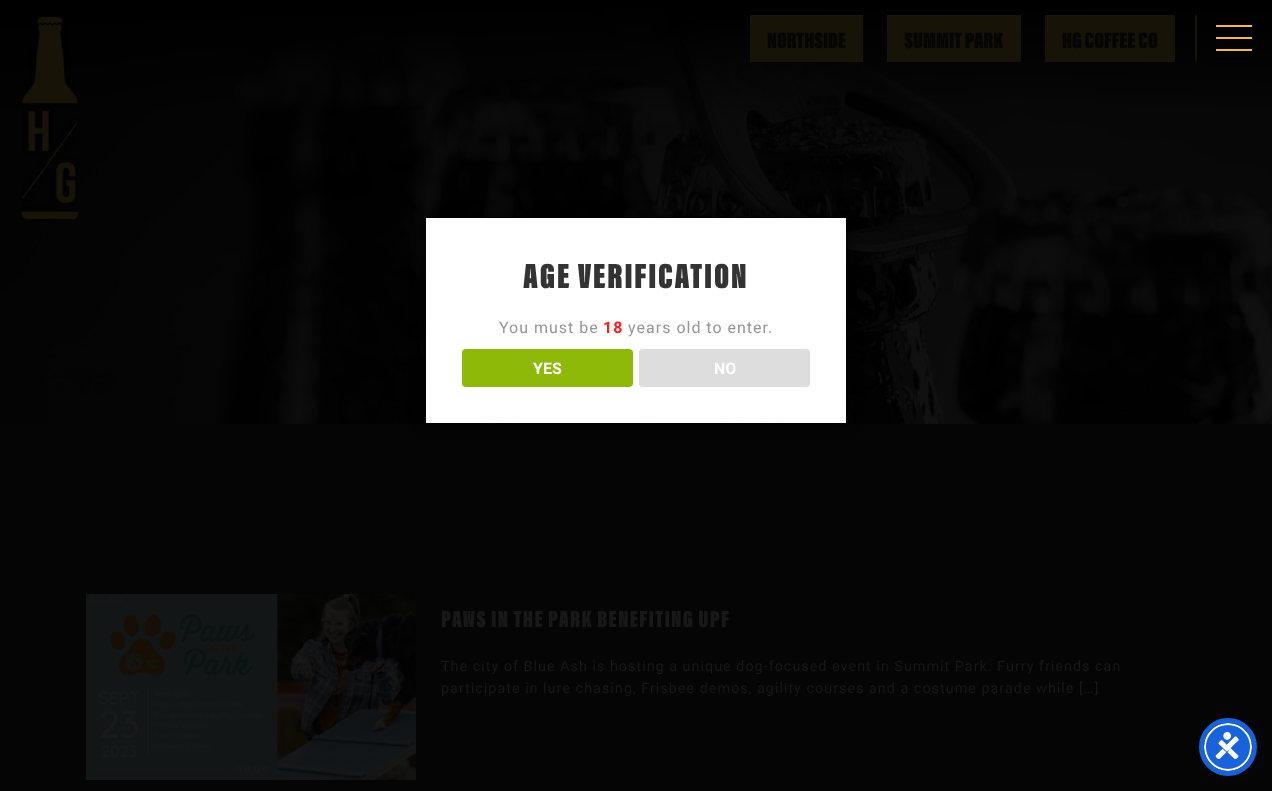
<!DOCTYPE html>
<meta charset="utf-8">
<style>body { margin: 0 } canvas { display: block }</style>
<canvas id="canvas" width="1272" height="791"></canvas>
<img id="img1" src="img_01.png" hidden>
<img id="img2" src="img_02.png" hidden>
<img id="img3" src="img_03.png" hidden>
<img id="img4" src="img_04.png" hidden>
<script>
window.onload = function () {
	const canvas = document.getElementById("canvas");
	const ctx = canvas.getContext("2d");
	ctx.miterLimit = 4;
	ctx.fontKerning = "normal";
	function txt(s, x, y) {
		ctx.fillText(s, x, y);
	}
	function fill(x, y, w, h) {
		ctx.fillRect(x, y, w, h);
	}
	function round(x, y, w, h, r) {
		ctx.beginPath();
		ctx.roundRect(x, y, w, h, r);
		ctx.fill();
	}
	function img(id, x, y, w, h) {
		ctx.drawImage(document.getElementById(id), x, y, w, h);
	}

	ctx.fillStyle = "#050505";
	fill(0, 0, 1272, 791);
	img("img1", 0, 0, 1272, 424);
	img("img2", 22, 17, 56, 203);
	ctx.fillStyle = "#181307";
	fill(1195, 15, 2, 46);
	fill(750, 15, 113, 47);
	fill(887, 15, 134, 47);
	fill(1045, 15, 130, 47);
	ctx.fillStyle = "#F1BD48";
	fill(1216, 37, 36, 2);
	fill(1216, 25, 36, 2);
	fill(1216, 49, 36, 2);
	ctx.fillStyle = "#000000";
	ctx.filter = "blur(7.5px)";
	ctx.beginPath();
	ctx.rect(426, 218, 420, 205);
	ctx.fill();
	ctx.filter = "none";
	ctx.fillStyle = "#FFFFFF";
	fill(426, 218, 420, 205);
	ctx.fillStyle = "#8EB908";
	round(462, 349, 171, 38, 4);
	ctx.fillStyle = "#DDDDDD";
	round(639, 349, 171, 38, 4);
	img("img3", 86, 594, 330, 186);
	ctx.fillStyle = "rgba(93, 100, 148, 0.2)";
	ctx.filter = "blur(2px)";
	ctx.beginPath();
	ctx.roundRect(1204, 725, 48, 48, 24);
	ctx.fill();
	ctx.filter = "none";
	ctx.fillStyle = "#1863DC";
	ctx.beginPath();
	ctx.arc(1228, 747, 23, 0, Math.PI * 2);
	ctx.fill();
	ctx.strokeStyle = "#FFFFFF";
	ctx.lineWidth = 2;
	ctx.stroke();
	ctx.beginPath();
	ctx.arc(1228, 747, 26.5, 0, Math.PI * 2);
	ctx.strokeStyle = "#1863DC";
	ctx.lineWidth = 5;
	ctx.stroke();
	img("img4", 1215, 732, 24, 27);
	ctx.font = "800 23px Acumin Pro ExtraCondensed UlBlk";
	ctx.fillStyle = "#050505";
	txt("NORTHSIDE", 767, 48);
	txt("SUMMIT PARK", 904, 48);
	txt("HG COFFEE CO", 1062, 48);
	ctx.letterSpacing = "1.75px";
	ctx.font = "800 36px Acumin Pro ExtraCondensed UlBlk";
	ctx.fillStyle = "#333333";
	txt("AGE VERIFICATION", 523, 288);
	ctx.letterSpacing = "1px";
	ctx.font = "16px Roboto";
	ctx.fillStyle = "#959595";
	txt("You must be", 499, 333);
	ctx.font = "bold 16px Roboto";
	ctx.fillStyle = "#FF1F1F";
	txt("18", 603, 333);
	ctx.font = "16px Roboto";
	ctx.fillStyle = "#959595";
	txt("years old to enter.", 628, 333);
	ctx.letterSpacing = "0px";
	ctx.font = "bold 16px Roboto";
	ctx.fillStyle = "#FFFFFF";
	txt("YES", 533, 374);
	txt("NO", 714, 374);
	ctx.letterSpacing = "1.2px";
	ctx.font = "800 24px Acumin Pro ExtraCondensed UlBlk";
	ctx.fillStyle = "#181818";
	txt("PAWS IN THE PARK BENEFITING UPF", 441, 627);
	ctx.letterSpacing = "1px";
	ctx.font = "14.4px Roboto";
	txt("The city of Blue Ash is hosting a unique dog-focused event in Summit Park. Furry friends can", 441, 671);
	txt("participate in lure chasing, Frisbee demos, agility courses and a costume parade while […]", 441, 693);
};
</script>
